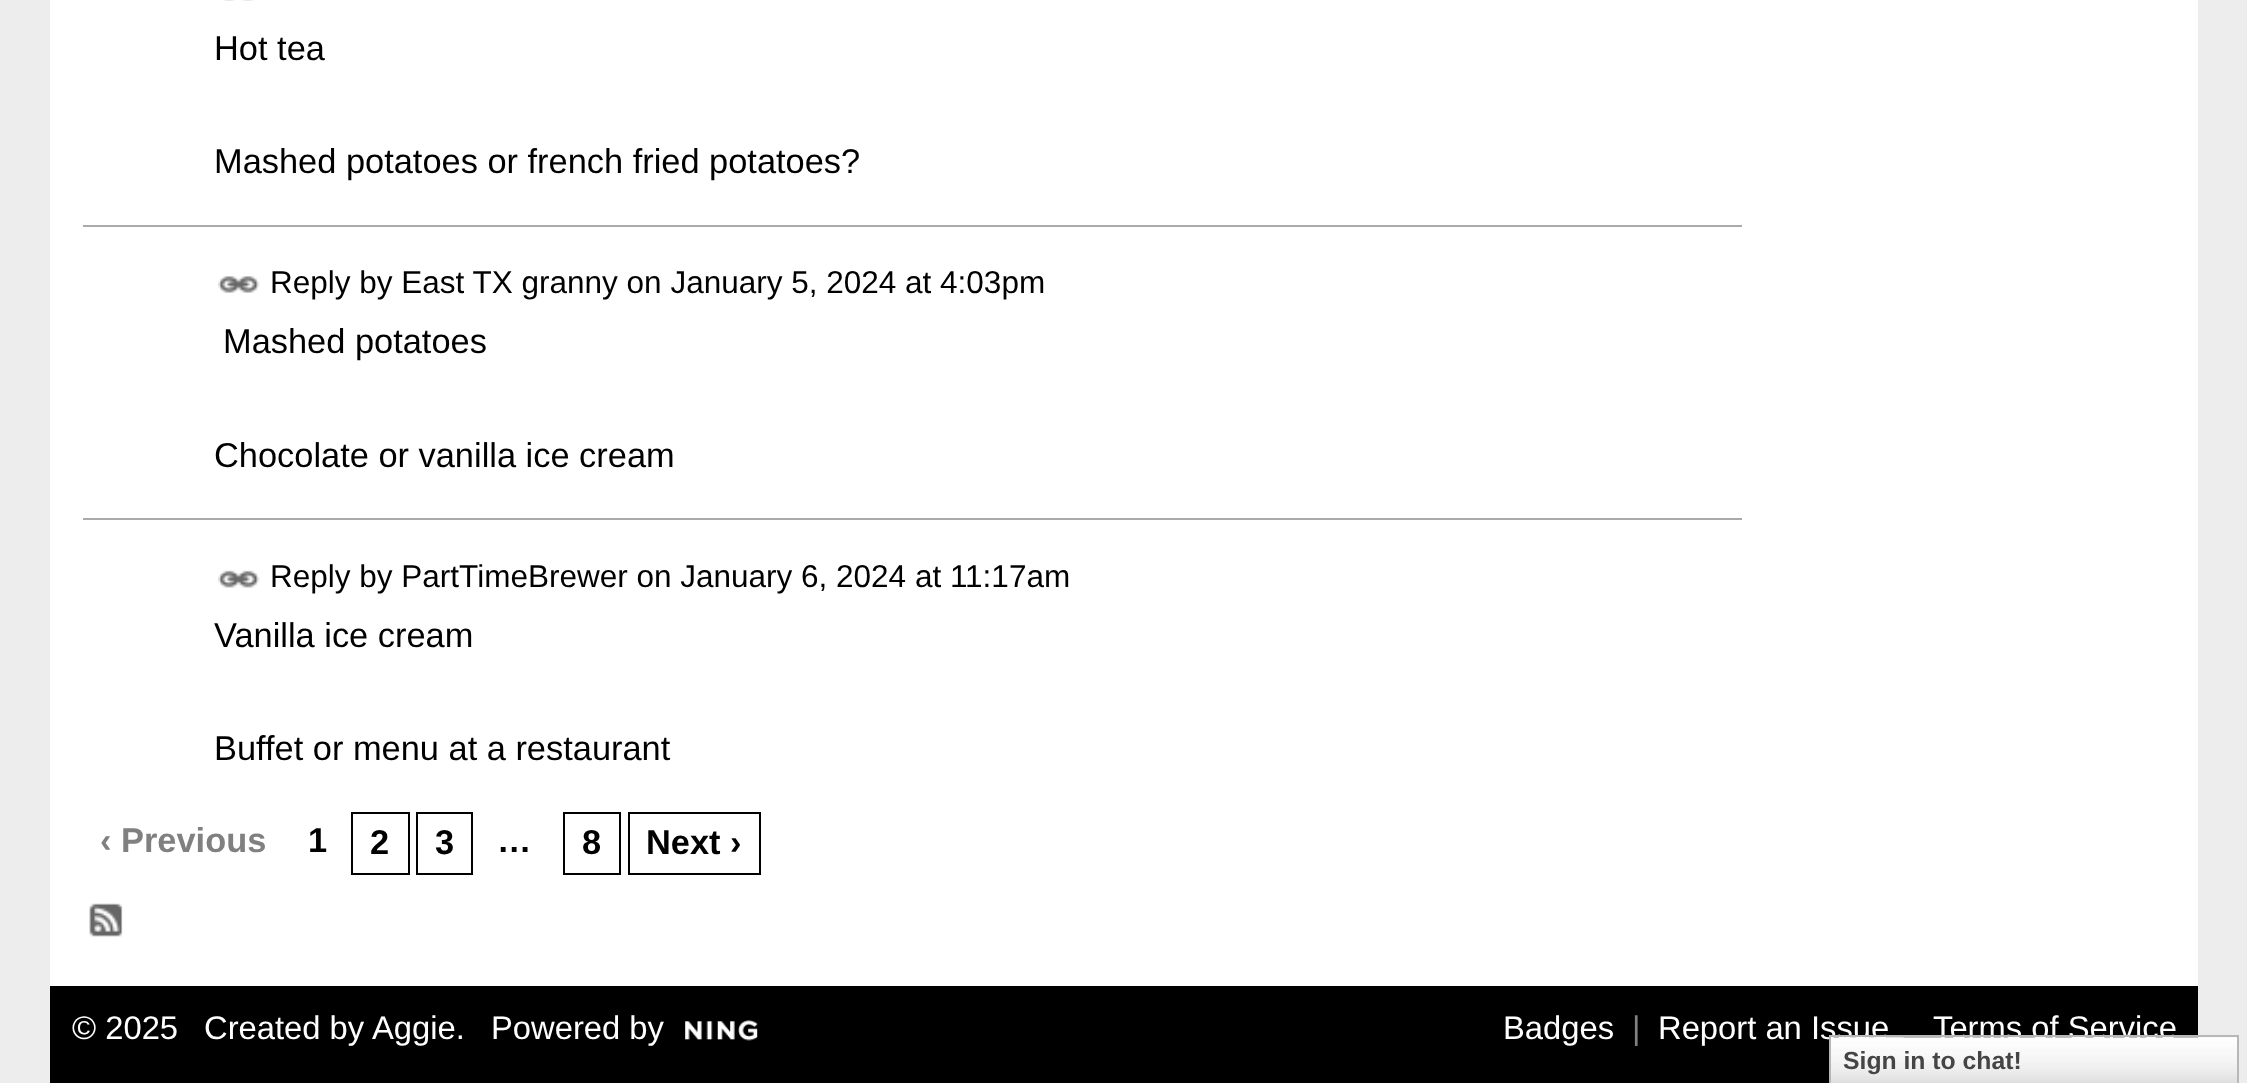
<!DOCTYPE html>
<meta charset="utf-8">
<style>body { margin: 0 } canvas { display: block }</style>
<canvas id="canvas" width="2247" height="1083"></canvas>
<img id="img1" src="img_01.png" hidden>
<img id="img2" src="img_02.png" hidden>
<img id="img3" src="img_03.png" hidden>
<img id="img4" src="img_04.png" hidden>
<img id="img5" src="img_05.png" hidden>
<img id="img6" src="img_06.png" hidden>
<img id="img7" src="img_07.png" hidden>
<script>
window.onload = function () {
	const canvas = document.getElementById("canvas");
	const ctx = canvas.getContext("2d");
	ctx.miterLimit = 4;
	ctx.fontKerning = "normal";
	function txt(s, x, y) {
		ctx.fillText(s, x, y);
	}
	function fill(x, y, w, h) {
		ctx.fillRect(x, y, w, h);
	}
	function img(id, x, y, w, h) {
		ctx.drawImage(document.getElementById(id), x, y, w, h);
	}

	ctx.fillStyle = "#EDEDED";
	fill(0, 0, 2247, 1083);
	ctx.fillStyle = "#FFFFFF";
	fill(50, 0, 2148, 986);
	img("img1", 223, 0, 31, 1);
	ctx.fillStyle = "#AAAAAA";
	fill(83, 225, 1659, 2);
	img("img2", 218, 276, 42, 17);
	fill(83, 518, 1659, 2);
	img("img3", 218, 570, 42, 18);
	ctx.strokeStyle = "#000000";
	ctx.lineWidth = 2;
	ctx.strokeRect(352, 813, 57, 61);
	ctx.strokeRect(417, 813, 55, 61);
	ctx.strokeRect(564, 813, 56, 61);
	ctx.strokeRect(629, 813, 131, 61);
	img("img4", 89, 903, 34, 34);
	ctx.fillStyle = "#000000";
	fill(50, 986, 2148, 97);
	img("img5", 685, 1020, 73, 21);
	ctx.font = "34.4px Liberation Sans";
	txt("Hot tea", 214, 60);
	txt("Mashed potatoes or french fried potatoes?", 214, 173);
	ctx.font = "31.5px Liberation Sans";
	txt("Reply by East TX granny on January 5, 2024 at 4:03pm", 270, 293);
	ctx.font = "34.4px Liberation Sans";
	txt("Mashed potatoes", 223, 353);
	txt("Chocolate or vanilla ice cream", 214, 467);
	ctx.font = "31.5px Liberation Sans";
	txt("Reply by PartTimeBrewer on January 6, 2024 at 11:17am", 270, 587);
	ctx.font = "34.4px Liberation Sans";
	txt("Vanilla ice cream", 214, 647);
	txt("Buffet or menu at a restaurant", 214, 760);
	ctx.font = "bold 34.4px Liberation Sans";
	ctx.fillStyle = "#808080";
	txt("‹ Previous", 100, 852);
	ctx.fillStyle = "#000000";
	txt("1", 308, 852);
	txt("2", 370, 854);
	txt("3", 435, 854);
	txt("…", 497, 852);
	txt("8", 582, 854);
	txt("Next ›", 646, 854);
	ctx.font = "32.75px Liberation Sans";
	ctx.fillStyle = "#FFFFFF";
	txt("© 2025", 72, 1039);
	txt("Created by", 204, 1039);
	txt("Aggie.", 372, 1039);
	txt("Powered by", 491, 1039);
	txt("Badges", 1503, 1039);
	ctx.fillStyle = "#808080";
	txt("|", 1632, 1039);
	ctx.fillStyle = "#FFFFFF";
	txt("Report an Issue", 1658, 1039);
	txt("Terms of Service", 1933, 1039);
	img("img6", 1831, 1037, 406, 46);
	ctx.strokeStyle = "#B7B7B7";
	ctx.strokeRect(1830, 1036, 408, 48);
	img("img7", 1849, 1037, 55, 1);
	ctx.font = "bold 24.75px Liberation Sans";
	ctx.fillStyle = "#454545";
	txt("Sign in to chat!", 1843, 1069);
};
</script>
